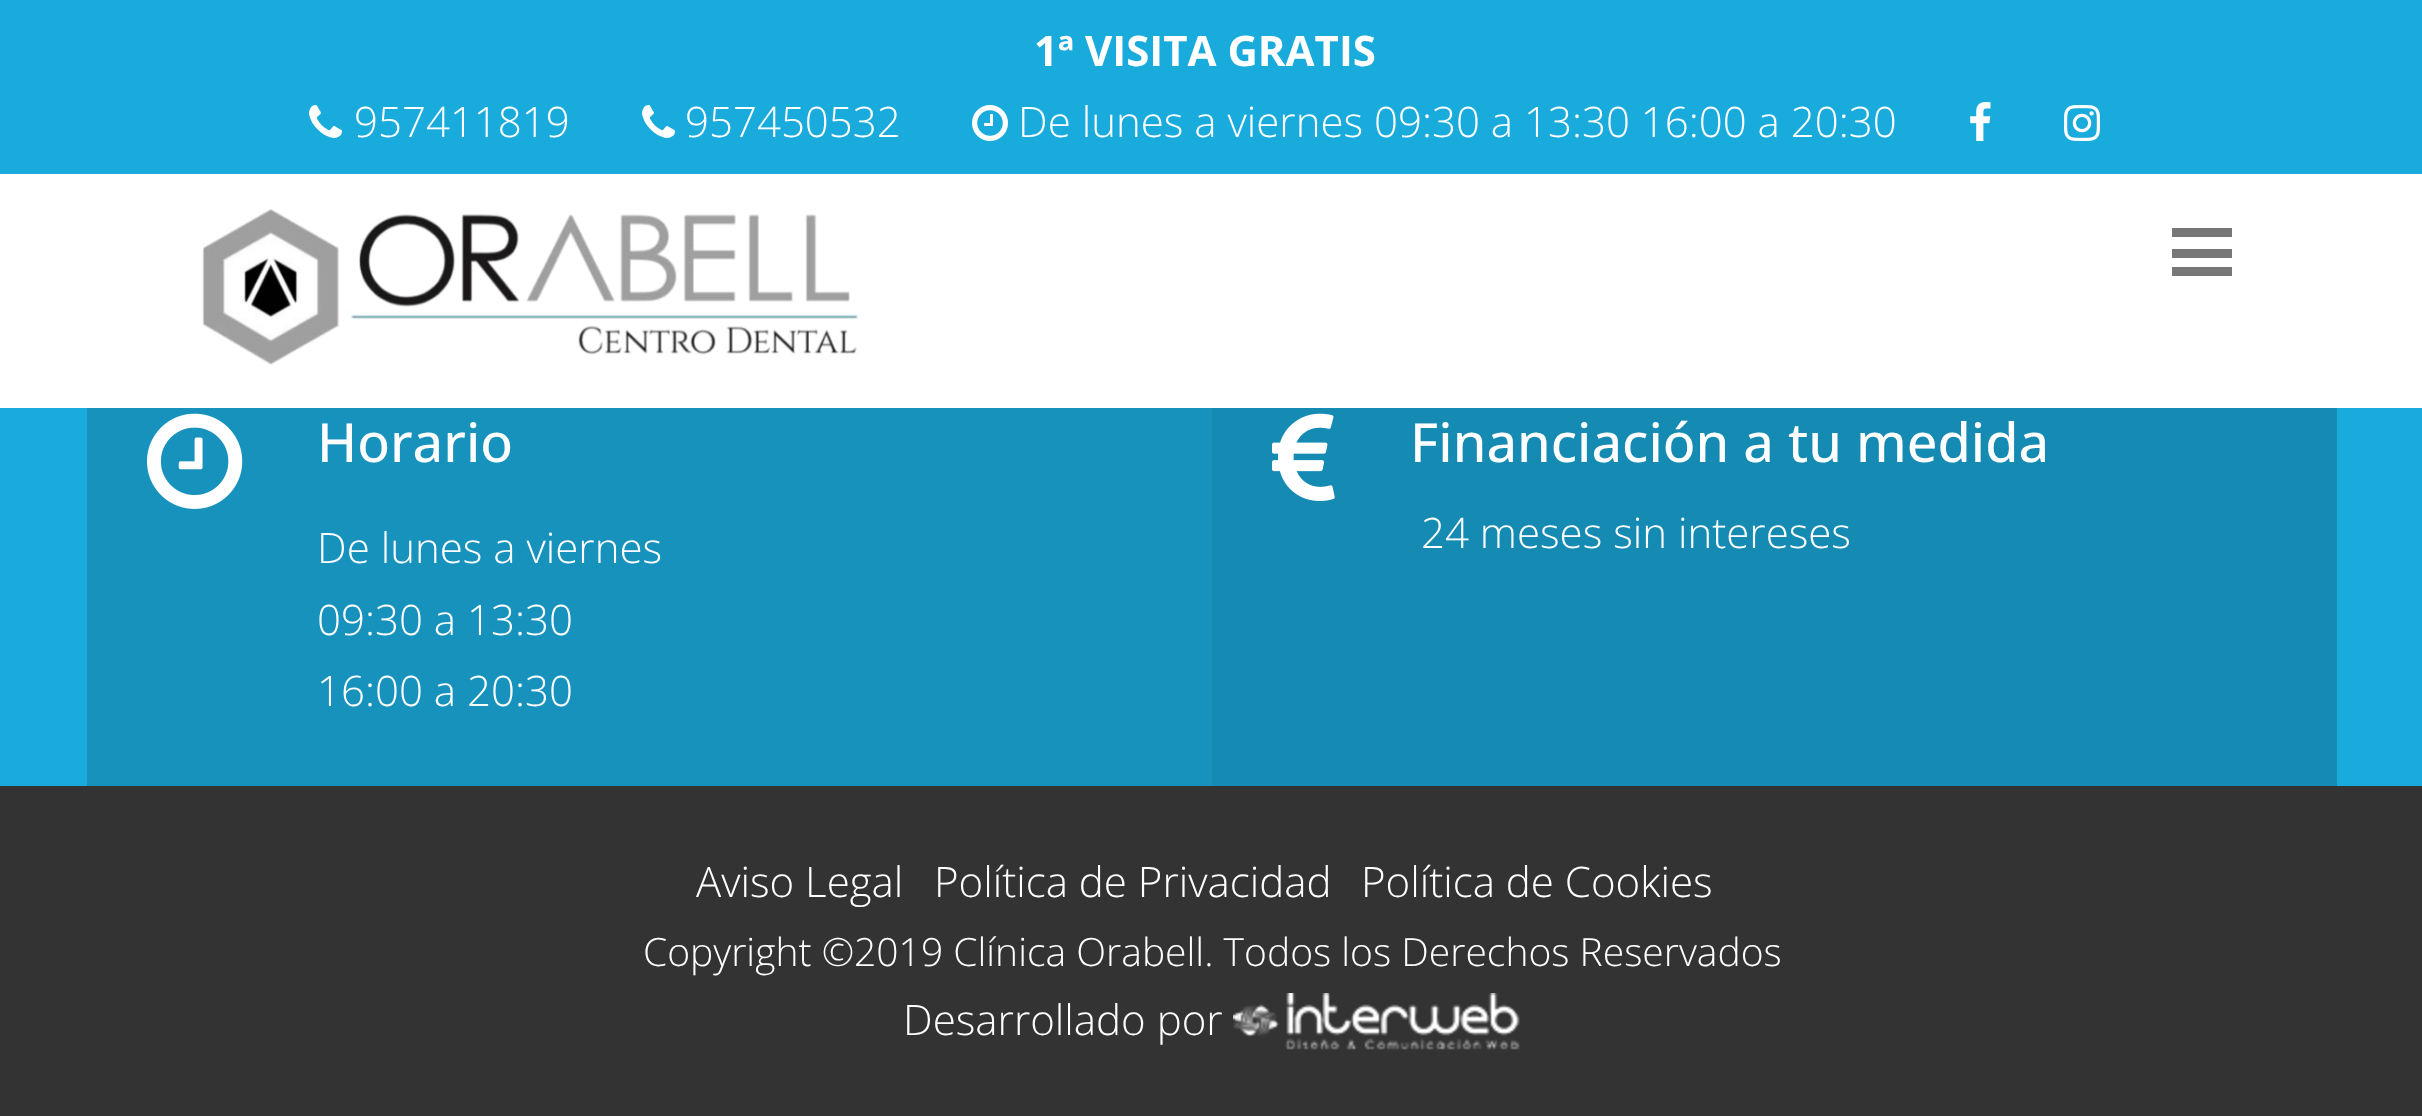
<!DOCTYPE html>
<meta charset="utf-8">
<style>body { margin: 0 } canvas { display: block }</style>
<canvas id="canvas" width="2422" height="1116"></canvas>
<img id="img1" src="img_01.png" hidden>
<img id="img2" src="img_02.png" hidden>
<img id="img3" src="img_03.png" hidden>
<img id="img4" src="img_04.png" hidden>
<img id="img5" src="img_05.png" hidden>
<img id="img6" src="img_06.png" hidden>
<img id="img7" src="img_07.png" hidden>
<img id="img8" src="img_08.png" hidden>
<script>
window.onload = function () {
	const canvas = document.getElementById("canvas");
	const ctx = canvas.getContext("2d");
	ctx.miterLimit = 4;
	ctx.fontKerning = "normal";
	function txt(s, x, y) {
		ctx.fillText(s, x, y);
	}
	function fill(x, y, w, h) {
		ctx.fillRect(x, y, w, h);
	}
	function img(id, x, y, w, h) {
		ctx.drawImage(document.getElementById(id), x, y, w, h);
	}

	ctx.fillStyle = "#1AABDD";
	fill(0, 0, 2422, 1116);
	img("img1", 309, 105, 33, 33);
	img("img1", 642, 105, 33, 33);
	img("img2", 972, 105, 36, 36);
	img("img3", 1970, 102, 21, 39);
	img("img4", 2064, 105, 36, 36);
	ctx.fillStyle = "#FFFFFF";
	fill(0, 174, 2422, 234);
	img("img5", 202, 209, 657, 156);
	ctx.fillStyle = "#777777";
	fill(2172, 228, 60, 9);
	fill(2172, 249, 60, 9);
	fill(2172, 267, 60, 9);
	ctx.fillStyle = "#1692BD";
	fill(87, 408, 1125, 378);
	img("img6", 147, 413, 96, 96);
	ctx.fillStyle = "#158BB4";
	fill(1212, 408, 1125, 378);
	img("img7", 1272, 413, 63, 88);
	ctx.fillStyle = "#333333";
	fill(0, 786, 2422, 330);
	img("img8", 1233, 993, 287, 57);
	ctx.font = "bold 42px Open Sans";
	ctx.fillStyle = "#FFFFFF";
	txt("1ª VISITA GRATIS", 1034, 66);
	ctx.font = "300 42px Open Sans";
	txt("957411819", 354, 137);
	txt("957450532", 685, 137);
	txt("De lunes a viernes 09:30 a 13:30 16:00 a 20:30", 1018, 137);
	ctx.font = "500 54px Open Sans";
	txt("Horario", 317, 462);
	ctx.font = "300 42px Open Sans";
	txt("De lunes a viernes", 317, 563);
	txt("09:30 a 13:30", 317, 635);
	txt("16:00 a 20:30", 317, 706);
	ctx.font = "500 54px Open Sans";
	txt("Financiación a tu medida", 1410, 462);
	ctx.font = "300 42px Open Sans";
	txt("24 meses sin intereses", 1421, 548);
	txt("Aviso Legal", 696, 897);
	txt("Política de Privacidad", 934, 897);
	txt("Política de Cookies", 1361, 897);
	ctx.font = "300 39px Open Sans";
	txt("Copyright ©2019 Clínica Orabell. Todos los Derechos Reservados", 643, 966);
	ctx.font = "300 42px Open Sans";
	txt("Desarrollado por", 903, 1035);
};
</script>
